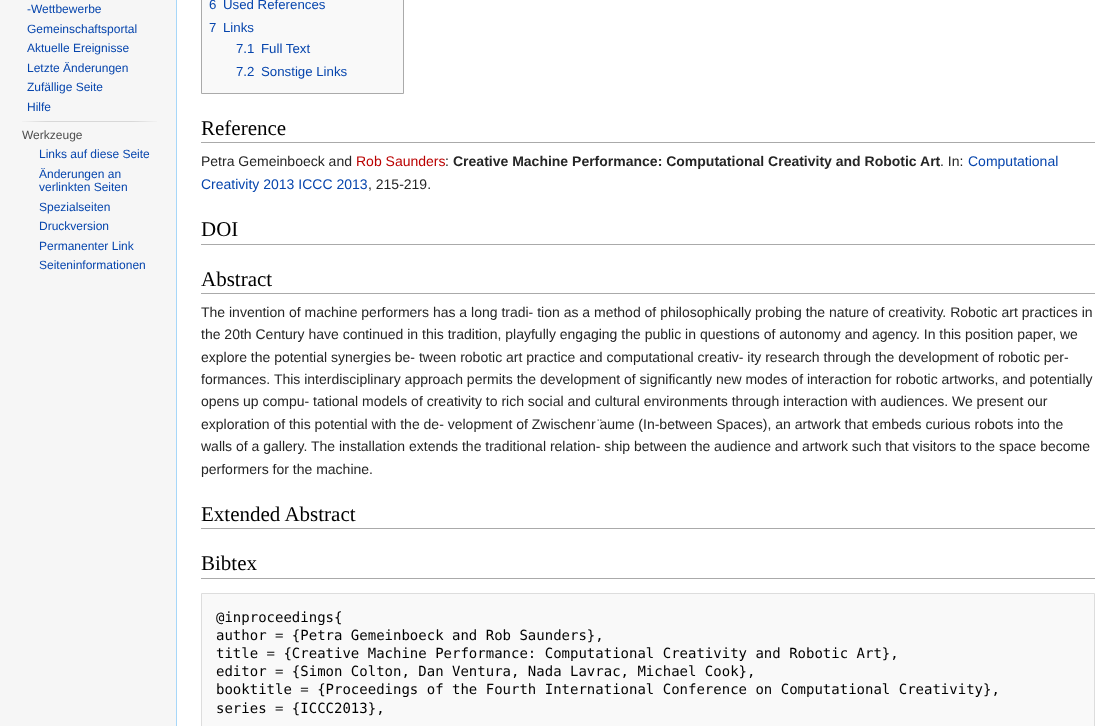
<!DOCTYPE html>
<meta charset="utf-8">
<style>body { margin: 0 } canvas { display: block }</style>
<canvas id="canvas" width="1119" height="726"></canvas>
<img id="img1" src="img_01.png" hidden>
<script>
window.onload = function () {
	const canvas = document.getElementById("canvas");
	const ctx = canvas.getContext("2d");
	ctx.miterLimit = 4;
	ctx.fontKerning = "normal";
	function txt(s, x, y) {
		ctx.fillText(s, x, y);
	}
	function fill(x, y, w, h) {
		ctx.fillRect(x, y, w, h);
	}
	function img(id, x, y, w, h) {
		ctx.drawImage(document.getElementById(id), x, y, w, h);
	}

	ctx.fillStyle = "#F6F6F6";
	fill(0, 0, 1119, 726);
	img("img1", 22, 121, 135, 1);
	ctx.fillStyle = "#FFFFFF";
	fill(177, 0, 942, 726);
	ctx.fillStyle = "#A7D7F9";
	fill(176, 0, 1, 726);
	ctx.fillStyle = "#F9F9F9";
	ctx.beginPath();
	ctx.rect(201.5, -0.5, 202, 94);
	ctx.fill();
	ctx.strokeStyle = "#AAAAAA";
	ctx.stroke();
	ctx.fillStyle = "#AAAAAA";
	fill(201, 142, 894, 1);
	fill(201, 244, 894, 1);
	fill(201, 293, 894, 1);
	fill(201, 528, 894, 1);
	fill(201, 578, 894, 1);
	ctx.fillStyle = "#F9F9F9";
	ctx.beginPath();
	ctx.rect(201.5, 593.5, 893, 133);
	ctx.fill();
	ctx.strokeStyle = "#DDDDDD";
	ctx.stroke();
	ctx.font = "12px Liberation Sans";
	ctx.fillStyle = "#0645AD";
	txt("-Wettbewerbe", 27, 13);
	txt("Gemeinschaftsportal", 27, 33);
	txt("Aktuelle Ereignisse", 27, 52);
	txt("Letzte Änderungen", 27, 72);
	txt("Zufällige Seite", 27, 91);
	txt("Hilfe", 27, 111);
	ctx.fillStyle = "#4D4D4D";
	txt("Werkzeuge", 22, 139);
	ctx.fillStyle = "#0645AD";
	txt("Links auf diese Seite", 39, 158);
	txt("Änderungen an", 39, 178);
	txt("verlinkten Seiten", 39, 191);
	txt("Spezialseiten", 39, 211);
	txt("Druckversion", 39, 230);
	txt("Permanenter Link", 39, 250);
	txt("Seiteninformationen", 39, 269);
	ctx.font = "13.25px Liberation Sans";
	txt("6", 209, 9);
	txt("Used References", 223, 9);
	txt("7", 209, 32);
	txt("Links", 223, 32);
	txt("7.1", 236, 53);
	txt("Full Text", 261, 53);
	txt("7.2", 236, 76);
	txt("Sonstige Links", 261, 76);
	ctx.font = "21px Liberation Serif";
	ctx.fillStyle = "#000000";
	txt("Reference", 201, 135);
	ctx.font = "14px Liberation Sans";
	ctx.fillStyle = "#252525";
	txt("Petra Gemeinboeck and", 201, 166);
	ctx.fillStyle = "#BA0000";
	txt("Rob Saunders", 356, 166);
	ctx.fillStyle = "#252525";
	txt(":", 445, 166);
	ctx.font = "bold 14px Liberation Sans";
	txt("Creative Machine Performance: Computational Creativity and Robotic Art", 453, 166);
	ctx.font = "14px Liberation Sans";
	txt(". In:", 940, 166);
	ctx.fillStyle = "#0645AD";
	txt("Computational", 968, 166);
	txt("Creativity 2013 ICCC 2013", 201, 189);
	ctx.fillStyle = "#252525";
	txt(", 215-219.", 368, 189);
	ctx.font = "21px Liberation Serif";
	ctx.fillStyle = "#000000";
	txt("DOI", 201, 236);
	txt("Abstract", 201, 286);
	ctx.font = "14px Liberation Sans";
	ctx.fillStyle = "#252525";
	txt("The invention of machine performers has a long tradi- tion as a method of philosophically probing the nature of creativity. Robotic art practices in", 201, 317);
	txt("the 20th Century have continued in this tradition, playfully engaging the public in questions of autonomy and agency. In this position paper, we", 201, 339);
	txt("explore the potential synergies be- tween robotic art practice and computational creativ- ity research through the development of robotic per-", 201, 362);
	txt("formances. This interdisciplinary approach permits the development of significantly new modes of interaction for robotic artworks, and potentially", 201, 384);
	txt("opens up compu- tational models of creativity to rich social and cultural environments through interaction with audiences. We present our", 201, 406);
	txt("exploration of this potential with the de- velopment of Zwischenr ̈aume (In-between Spaces), an artwork that embeds curious robots into the", 201, 429);
	txt("walls of a gallery. The installation extends the traditional relation- ship between the audience and artwork such that visitors to the space become", 201, 451);
	txt("performers for the machine.", 201, 474);
	ctx.font = "21px Liberation Serif";
	ctx.fillStyle = "#000000";
	txt("Extended Abstract", 201, 521);
	txt("Bibtex", 201, 570);
	ctx.font = "14px DejaVu Sans Mono";
	txt("@inproceedings{", 216, 622);
	txt("author = {Petra Gemeinboeck and Rob Saunders},", 216, 640);
	txt("title = {Creative Machine Performance: Computational Creativity and Robotic Art},", 216, 658);
	txt("editor = {Simon Colton, Dan Ventura, Nada Lavrac, Michael Cook},", 216, 676);
	txt("booktitle = {Proceedings of the Fourth International Conference on Computational Creativity},", 216, 694);
	txt("series = {ICCC2013},", 216, 713);
};
</script>
